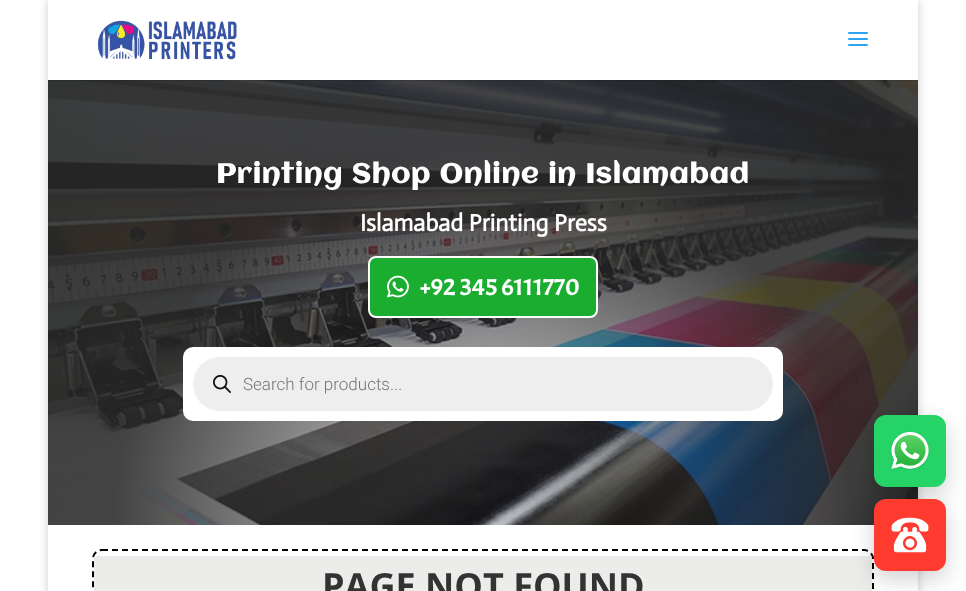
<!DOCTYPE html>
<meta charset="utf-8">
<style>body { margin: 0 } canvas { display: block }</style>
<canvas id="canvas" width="966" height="591"></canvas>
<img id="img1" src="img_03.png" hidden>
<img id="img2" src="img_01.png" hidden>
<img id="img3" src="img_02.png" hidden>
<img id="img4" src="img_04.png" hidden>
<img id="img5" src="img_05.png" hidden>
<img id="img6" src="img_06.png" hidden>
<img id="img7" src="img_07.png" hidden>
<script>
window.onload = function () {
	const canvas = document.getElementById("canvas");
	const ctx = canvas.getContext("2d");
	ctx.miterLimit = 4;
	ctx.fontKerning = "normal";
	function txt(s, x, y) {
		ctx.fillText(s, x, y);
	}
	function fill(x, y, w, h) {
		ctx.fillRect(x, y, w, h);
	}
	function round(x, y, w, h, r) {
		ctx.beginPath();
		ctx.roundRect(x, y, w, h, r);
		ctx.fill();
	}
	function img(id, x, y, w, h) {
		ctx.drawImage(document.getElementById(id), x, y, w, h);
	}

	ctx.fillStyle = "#FFFFFF";
	fill(0, 0, 966, 591);
	ctx.save();
	ctx.beginPath();
	ctx.moveTo(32, 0);
	ctx.lineTo(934, 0);
	ctx.lineTo(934, 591);
	ctx.lineTo(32, 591);
	ctx.closePath();
	ctx.moveTo(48, 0);
	ctx.lineTo(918, 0);
	ctx.lineTo(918, 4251);
	ctx.lineTo(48, 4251);
	ctx.closePath();
	ctx.clip("evenodd");
	ctx.fillStyle = "rgba(0, 0, 0, 0.2)";
	ctx.filter = "blur(5px)";
	ctx.beginPath();
	ctx.rect(48, 0, 870, 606);
	ctx.fill();
	ctx.filter = "none";
	ctx.restore();
	img("img1", 48, 80, 870, 445);
	ctx.fillStyle = "rgba(0, 0, 0, 0.1)";
	fill(48, 80, 870, 1);
	img("img2", 97, 20, 140, 40);
	img("img3", 848, 32, 20, 14);
	ctx.fillStyle = "#1AAD30";
	ctx.beginPath();
	ctx.roundRect(369, 257, 228, 60, 7);
	ctx.fill();
	ctx.strokeStyle = "#FFFFFF";
	ctx.lineWidth = 2;
	ctx.stroke();
	img("img4", 387, 275, 22, 23);
	ctx.fillStyle = "#FFFFFF";
	round(183, 347, 600, 74, 10);
	ctx.fillStyle = "#EEEEEE";
	round(193, 357, 580, 54, 27);
	img("img5", 213, 375, 18, 18);
	ctx.beginPath();
	ctx.moveTo(102, 550);
	ctx.lineTo(864, 550);
	ctx.bezierCurveTo(869, 550, 873, 554, 873, 559);
	ctx.lineTo(873, 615);
	ctx.bezierCurveTo(873, 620, 869, 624, 864, 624);
	ctx.lineTo(102, 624);
	ctx.bezierCurveTo(97, 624, 93, 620, 93, 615);
	ctx.lineTo(93, 559);
	ctx.bezierCurveTo(93, 554, 97, 550, 102, 550);
	ctx.closePath();
	ctx.strokeStyle = "#000000";
	ctx.setLineDash([6, 4]);
	ctx.stroke();
	ctx.save();
	ctx.beginPath();
	ctx.roundRect(94, 551, 778, 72, 8);
	ctx.clip();
	ctx.fillStyle = "#ECECEB";
	fill(94, 556, 778, 35);
	ctx.restore();
	ctx.fillStyle = "rgba(0, 0, 0, 0.18)";
	ctx.filter = "blur(11px)";
	ctx.beginPath();
	ctx.roundRect(874, 423, 72, 72, 12);
	ctx.fill();
	ctx.filter = "none";
	ctx.fillStyle = "#25D366";
	round(874, 415, 72, 72, 12);
	img("img6", 890, 431, 40, 39);
	ctx.fillStyle = "rgba(0, 0, 0, 0.18)";
	ctx.filter = "blur(11px)";
	ctx.beginPath();
	ctx.roundRect(874, 507, 72, 72, 12);
	ctx.fill();
	ctx.filter = "none";
	ctx.fillStyle = "#FF3B30";
	round(874, 499, 72, 72, 12);
	img("img7", 891, 517, 38, 36);
	ctx.letterSpacing = "1px";
	ctx.font = "bold 27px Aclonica";
	ctx.fillStyle = "#FFFFFF";
	txt("Printing Shop Online in Islamabad", 216, 183);
	ctx.letterSpacing = "0px";
	ctx.font = "bold 24px Actor";
	txt("Islamabad Printing Press", 360, 231);
	ctx.font = "25px Acme";
	txt("+92 345 6111770", 420, 295);
	ctx.font = "300 17px Roboto";
	ctx.fillStyle = "#777777";
	txt("Search for products...", 243, 390);
	ctx.font = "bold 36px Open Sans";
	ctx.fillStyle = "#333333";
	txt("PAGE NOT FOUND", 322, 599);
};
</script>
